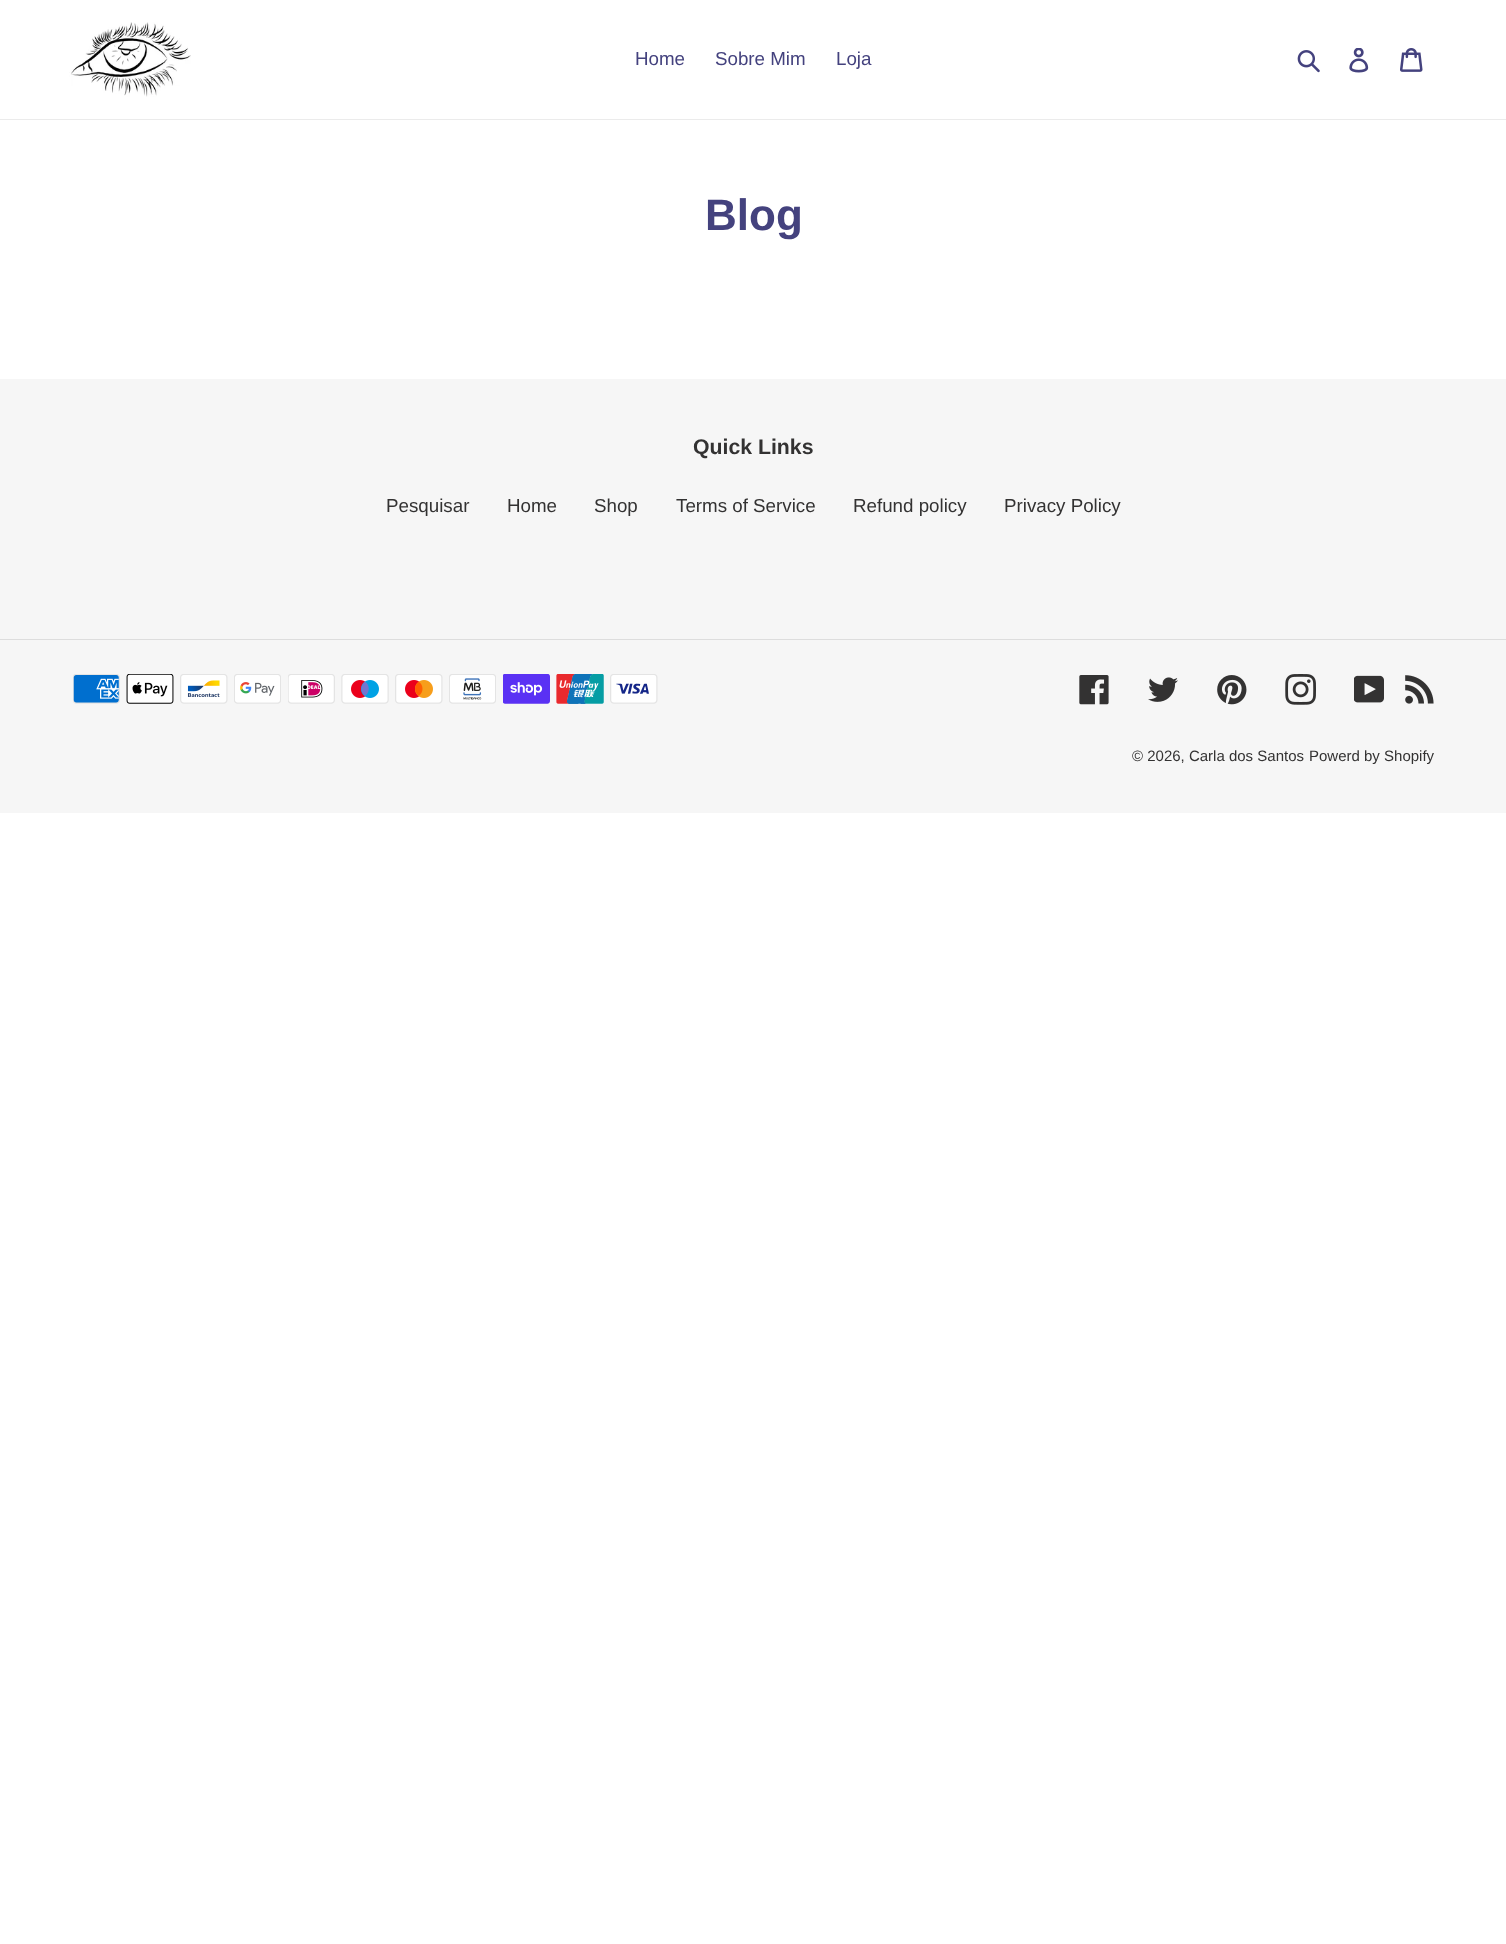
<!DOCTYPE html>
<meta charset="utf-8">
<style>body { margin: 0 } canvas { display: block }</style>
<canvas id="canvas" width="1506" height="1944"></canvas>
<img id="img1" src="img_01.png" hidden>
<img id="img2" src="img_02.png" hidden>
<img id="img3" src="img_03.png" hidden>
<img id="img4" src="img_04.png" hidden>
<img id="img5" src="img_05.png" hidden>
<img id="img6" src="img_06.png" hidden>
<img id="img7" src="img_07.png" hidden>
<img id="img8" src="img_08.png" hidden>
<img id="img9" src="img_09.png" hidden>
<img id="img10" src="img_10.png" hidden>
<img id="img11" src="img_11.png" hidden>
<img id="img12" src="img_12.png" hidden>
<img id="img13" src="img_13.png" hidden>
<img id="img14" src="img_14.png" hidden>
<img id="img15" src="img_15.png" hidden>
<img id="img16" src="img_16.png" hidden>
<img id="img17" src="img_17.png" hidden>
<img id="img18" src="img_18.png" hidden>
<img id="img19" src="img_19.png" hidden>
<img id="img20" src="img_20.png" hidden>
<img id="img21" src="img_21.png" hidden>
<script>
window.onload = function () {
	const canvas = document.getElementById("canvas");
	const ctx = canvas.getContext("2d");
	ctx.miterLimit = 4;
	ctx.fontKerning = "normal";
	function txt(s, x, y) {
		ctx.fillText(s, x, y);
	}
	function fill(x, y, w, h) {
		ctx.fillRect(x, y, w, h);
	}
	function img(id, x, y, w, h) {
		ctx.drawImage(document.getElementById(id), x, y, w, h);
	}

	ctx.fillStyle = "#FFFFFF";
	fill(0, 0, 1506, 1944);
	ctx.fillStyle = "#EBEBEB";
	fill(0, 119, 1506, 1);
	img("img1", 69, 22, 122, 75);
	img("img2", 1297, 50, 23, 23);
	img("img3", 1349, 48, 20, 25);
	img("img4", 1400, 48, 23, 24);
	ctx.fillStyle = "#F6F6F6";
	fill(0, 379, 1506, 434);
	ctx.fillStyle = "#DDDDDD";
	fill(0, 639, 1506, 1);
	img("img5", 73, 674, 47, 30);
	img("img6", 126, 674, 48, 30);
	img("img7", 180, 674, 48, 30);
	img("img8", 234, 674, 47, 30);
	img("img9", 288, 674, 47, 30);
	img("img10", 341, 674, 48, 30);
	img("img11", 395, 674, 48, 30);
	img("img12", 449, 674, 47, 30);
	img("img13", 503, 674, 47, 30);
	img("img14", 556, 674, 48, 30);
	img("img15", 610, 674, 48, 30);
	img("img16", 1079, 675, 30, 30);
	img("img17", 1148, 677, 30, 25);
	img("img18", 1217, 675, 30, 30);
	img("img19", 1285, 674, 31, 31);
	img("img20", 1354, 675, 30, 28);
	img("img21", 1405, 675, 29, 29);
	ctx.font = "18.75px Liberation Sans";
	ctx.fillStyle = "#44427E";
	txt("Home", 635, 65);
	txt("Sobre Mim", 715, 65);
	txt("Loja", 836, 65);
	ctx.font = "bold 44px Liberation Sans";
	txt("Blog", 705, 230);
	ctx.font = "bold 21.25px Liberation Sans";
	ctx.fillStyle = "#333232";
	txt("Quick Links", 693, 454);
	ctx.font = "18.75px Liberation Sans";
	txt("Pesquisar", 386, 512);
	txt("Home", 507, 512);
	txt("Shop", 594, 512);
	txt("Terms of Service", 676, 512);
	txt("Refund policy", 853, 512);
	txt("Privacy Policy", 1004, 512);
	ctx.font = "15px Liberation Sans";
	txt("© 2026, Carla dos Santos", 1132, 761);
	txt("Powerd by Shopify", 1309, 761);
};
</script>
